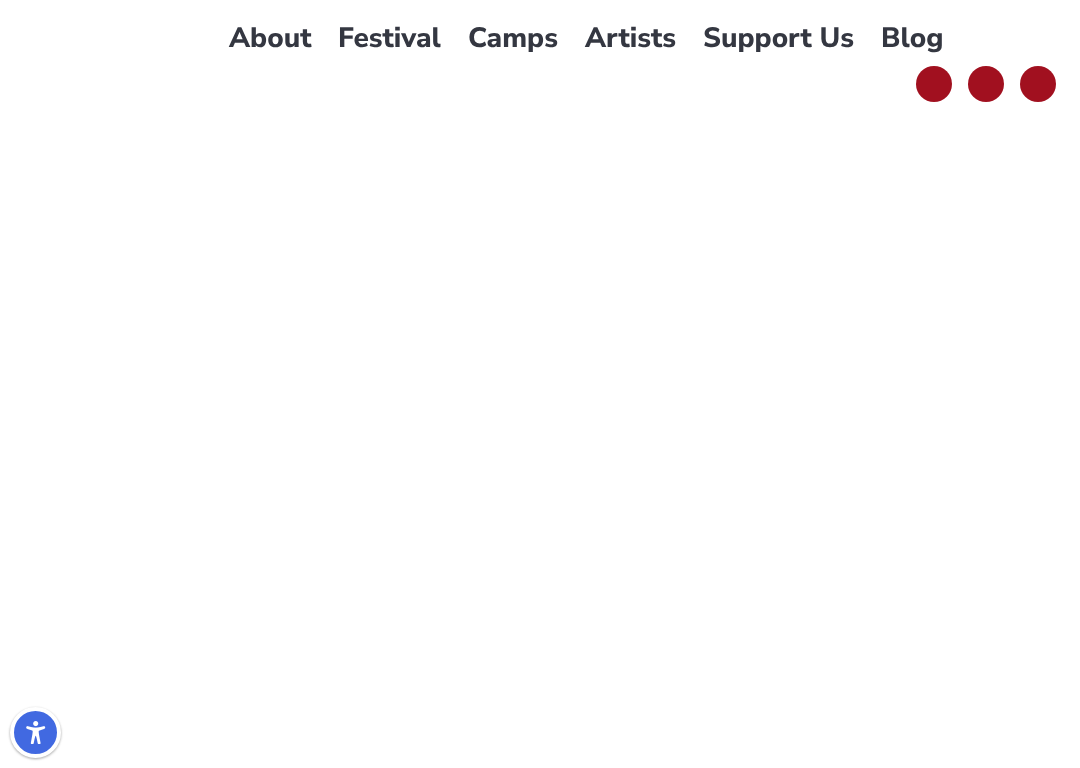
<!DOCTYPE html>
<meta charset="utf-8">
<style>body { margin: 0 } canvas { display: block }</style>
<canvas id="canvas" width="1080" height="768"></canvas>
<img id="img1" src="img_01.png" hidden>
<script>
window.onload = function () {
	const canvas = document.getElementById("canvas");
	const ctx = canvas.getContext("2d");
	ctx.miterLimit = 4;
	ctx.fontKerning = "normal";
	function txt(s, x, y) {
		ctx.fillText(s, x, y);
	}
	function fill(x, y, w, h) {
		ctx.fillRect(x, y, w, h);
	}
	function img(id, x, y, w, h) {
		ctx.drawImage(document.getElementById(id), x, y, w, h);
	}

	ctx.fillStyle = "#FFFFFF";
	fill(0, 0, 1080, 768);
	ctx.fillStyle = "#A1101F";
	ctx.beginPath();
	ctx.arc(934, 84, 18, 0, Math.PI * 2);
	ctx.fill();
	ctx.beginPath();
	ctx.arc(986, 84, 18, 0, Math.PI * 2);
	ctx.fill();
	ctx.beginPath();
	ctx.arc(1038, 84, 18, 0, Math.PI * 2);
	ctx.fill();
	ctx.fillStyle = "rgba(0, 0, 0, 0.24)";
	ctx.filter = "blur(1px)";
	ctx.beginPath();
	ctx.roundRect(10, 708, 51, 51, 25.5);
	ctx.fill();
	ctx.filter = "none";
	ctx.fillStyle = "rgba(0, 0, 0, 0.12)";
	ctx.filter = "blur(1.5px)";
	ctx.beginPath();
	ctx.roundRect(10, 708, 51, 51, 25.5);
	ctx.fill();
	ctx.filter = "none";
	ctx.fillStyle = "#4169E1";
	ctx.beginPath();
	ctx.arc(35.5, 732.5, 23.5, 0, Math.PI * 2);
	ctx.fill();
	ctx.strokeStyle = "#FFFFFF";
	ctx.lineWidth = 4;
	ctx.stroke();
	img("img1", 26, 721, 20, 23);
	ctx.font = "800 28px Nunito Sans";
	ctx.fillStyle = "#343741";
	txt("About", 229, 47);
	txt("Festival", 338, 47);
	txt("Camps", 468, 47);
	txt("Artists", 585, 47);
	txt("Support Us", 703, 47);
	txt("Blog", 881, 47);
};
</script>
